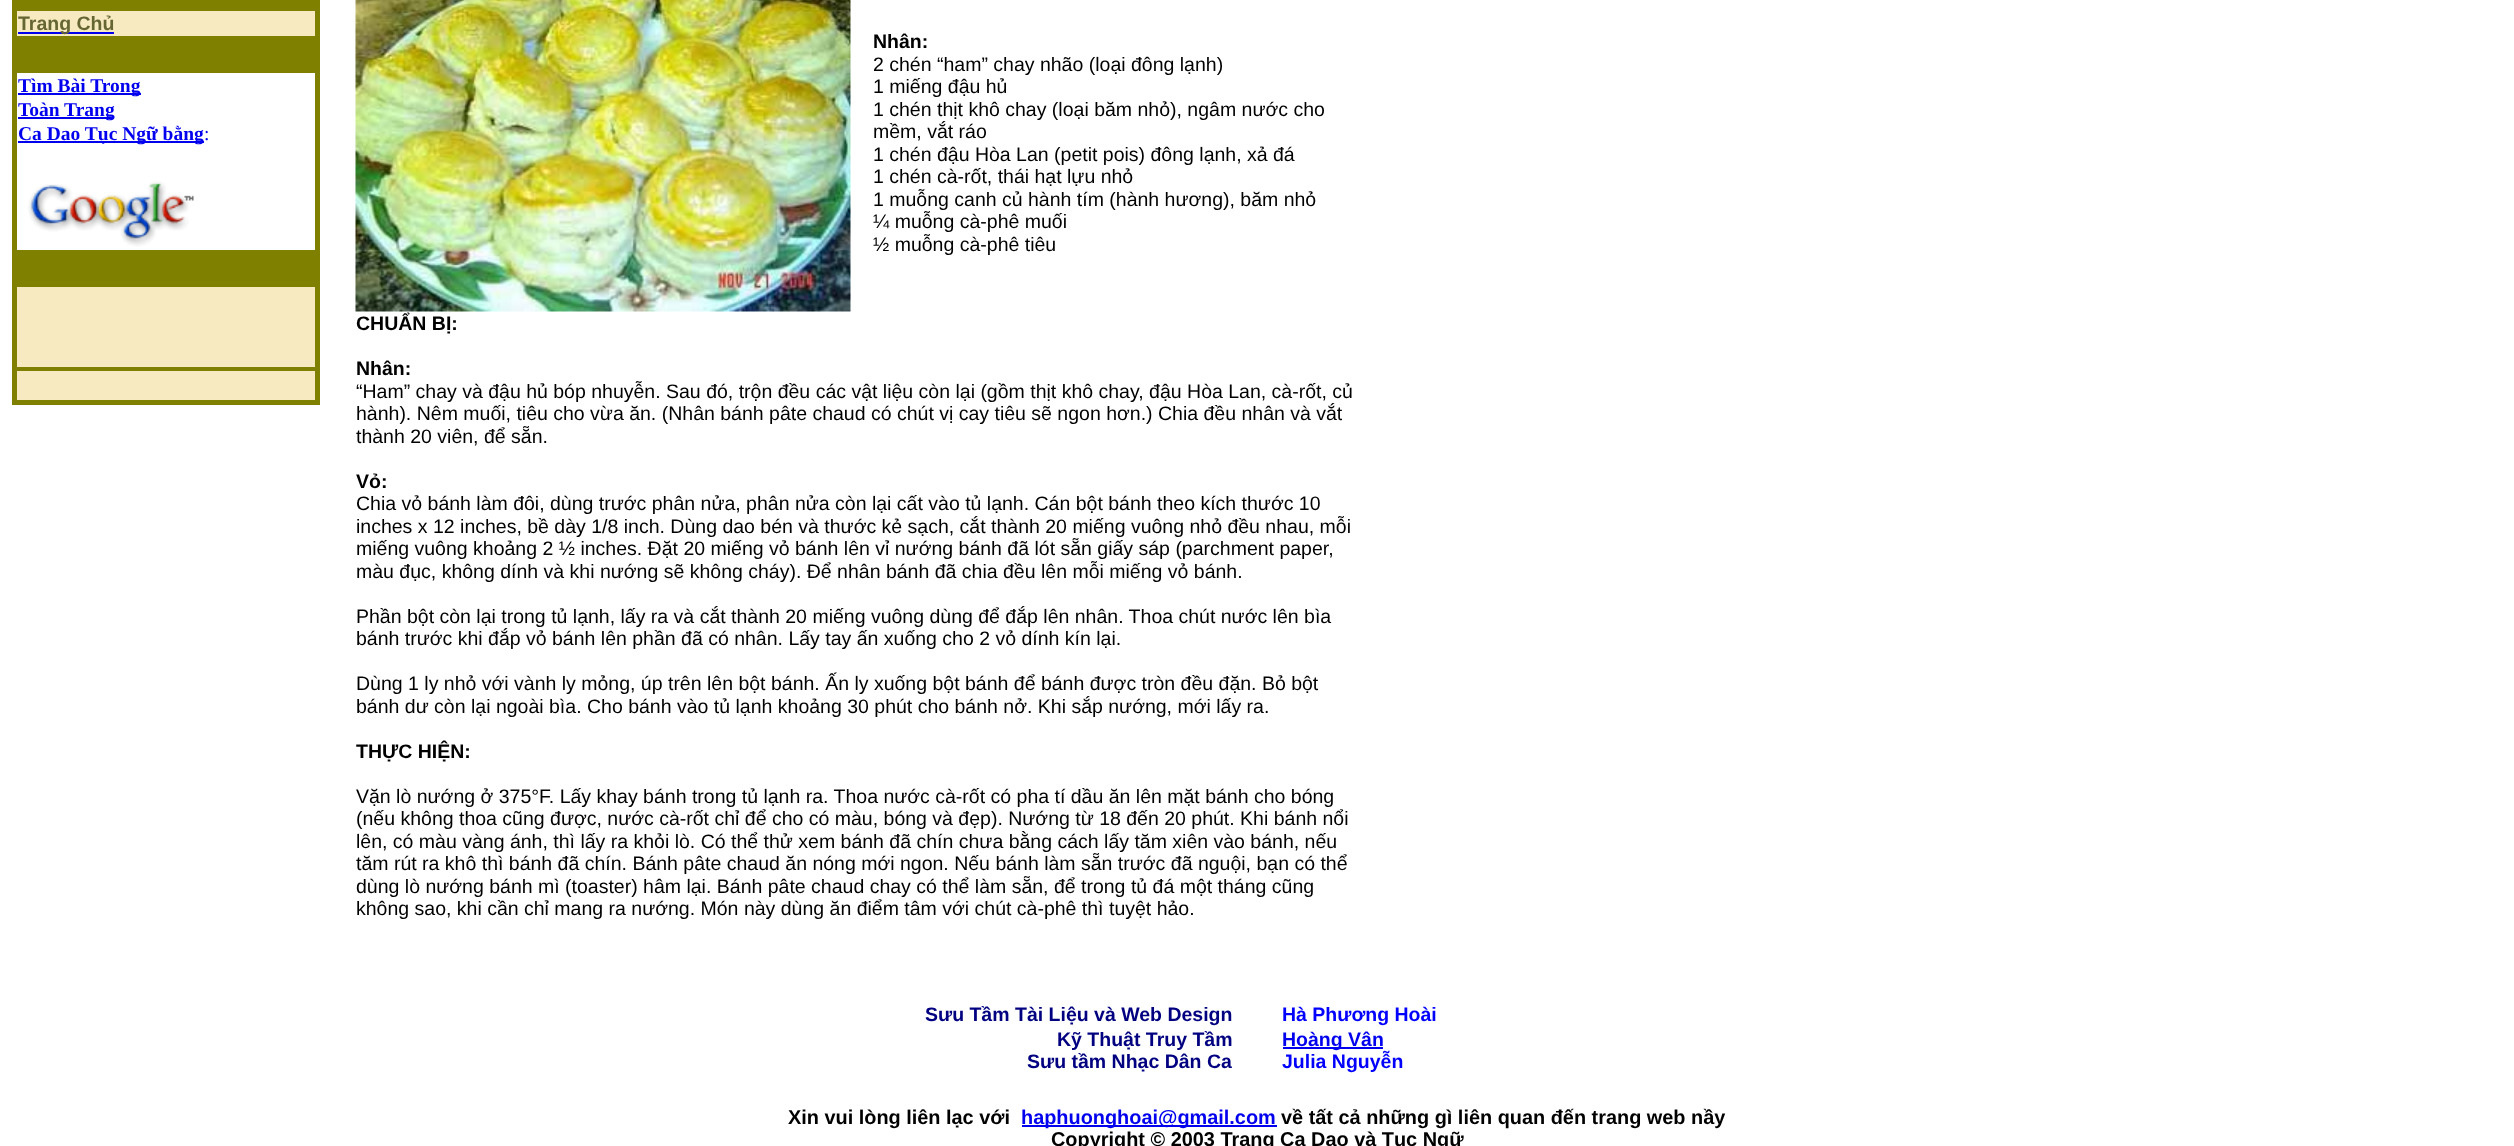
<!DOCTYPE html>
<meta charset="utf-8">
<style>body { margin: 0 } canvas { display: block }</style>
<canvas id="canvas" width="2514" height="1146"></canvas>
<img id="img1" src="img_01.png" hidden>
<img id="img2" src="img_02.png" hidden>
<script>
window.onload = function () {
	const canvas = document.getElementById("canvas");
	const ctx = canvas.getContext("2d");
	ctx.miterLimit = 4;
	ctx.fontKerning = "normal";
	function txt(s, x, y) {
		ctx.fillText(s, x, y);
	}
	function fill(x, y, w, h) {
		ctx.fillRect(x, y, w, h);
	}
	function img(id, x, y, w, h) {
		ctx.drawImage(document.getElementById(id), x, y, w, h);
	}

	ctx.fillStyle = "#FFFFFF";
	fill(0, 0, 2514, 1146);
	ctx.strokeStyle = "#808000";
	ctx.lineWidth = 3;
	ctx.strokeRect(13.5, -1.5, 305, 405);
	ctx.fillStyle = "#808000";
	fill(15, 0, 302, 9);
	ctx.fillStyle = "#F7EAC1";
	ctx.beginPath();
	ctx.rect(16, 10, 300, 27);
	ctx.fill();
	ctx.lineWidth = 2;
	ctx.stroke();
	ctx.fillStyle = "#0000EE";
	fill(18, 32, 96, 2);
	ctx.fillStyle = "#808000";
	fill(15, 38, 302, 33);
	ctx.strokeRect(16, 72, 300, 179);
	ctx.fillStyle = "#0000EE";
	fill(18, 93, 123, 2);
	fill(18, 117, 96, 2);
	fill(18, 141, 186, 2);
	img("img1", 27, 181, 167, 66);
	ctx.fillStyle = "#808000";
	fill(15, 252, 302, 33);
	ctx.fillStyle = "#F7EAC1";
	ctx.beginPath();
	ctx.rect(16, 286, 300, 82);
	ctx.fill();
	ctx.stroke();
	ctx.beginPath();
	ctx.rect(16, 370, 300, 31);
	ctx.fill();
	ctx.stroke();
	img("img2", 355, 0, 496, 312);
	ctx.fillStyle = "#0000EE";
	fill(1283, 1047, 100, 2);
	fill(1022, 1125, 255, 2);
	ctx.font = "bold 19.5px Liberation Sans";
	ctx.fillStyle = "#666633";
	txt("Trang Chủ", 18, 30);
	ctx.font = "bold 19.5px Liberation Serif";
	ctx.fillStyle = "#0000EE";
	txt("Tìm Bài Trong", 18, 92);
	txt("Toàn Trang", 18, 116);
	txt("Ca Dao Tục Ngữ bằng", 18, 140);
	ctx.font = "19.5px Liberation Serif";
	txt(":", 204, 140);
	ctx.font = "bold 19.5px Liberation Sans";
	ctx.fillStyle = "#000000";
	txt("Nhân:", 873, 48);
	ctx.font = "19.5px Liberation Sans";
	txt("2 chén “ham” chay nhão (loại đông lạnh)", 873, 71);
	txt("1 miếng đậu hủ", 873, 93);
	txt("1 chén thịt khô chay (loại băm nhỏ), ngâm nước cho", 873, 116);
	txt("mềm, vắt ráo", 873, 138);
	txt("1 chén đậu Hòa Lan (petit pois) đông lạnh, xả đá", 873, 161);
	txt("1 chén cà-rốt, thái hạt lựu nhỏ", 873, 183);
	txt("1 muỗng canh củ hành tím (hành hương), băm nhỏ", 873, 206);
	txt("¼ muỗng cà-phê muối", 873, 228);
	txt("½ muỗng cà-phê tiêu", 873, 251);
	ctx.font = "bold 19.5px Liberation Sans";
	txt("CHUẨN BỊ:", 356, 330);
	txt("Nhân:", 356, 375);
	ctx.font = "19.5px Liberation Sans";
	txt("“Ham” chay và đậu hủ bóp nhuyễn. Sau đó, trộn đều các vật liệu còn lại (gồm thịt khô chay, đậu Hòa Lan, cà-rốt, củ", 356, 398);
	txt("hành). Nêm muối, tiêu cho vừa ăn. (Nhân bánh pâte chaud có chút vị cay tiêu sẽ ngon hơn.) Chia đều nhân và vắt", 356, 420);
	txt("thành 20 viên, để sẵn.", 356, 443);
	ctx.font = "bold 19.5px Liberation Sans";
	txt("Vỏ:", 356, 488);
	ctx.font = "19.5px Liberation Sans";
	txt("Chia vỏ bánh làm đôi, dùng trước phân nửa, phân nửa còn lại cất vào tủ lạnh. Cán bột bánh theo kích thước 10", 356, 510);
	txt("inches x 12 inches, bề dày 1/8 inch. Dùng dao bén và thước kẻ sạch, cắt thành 20 miếng vuông nhỏ đều nhau, mỗi", 356, 533);
	txt("miếng vuông khoảng 2 ½ inches. Đặt 20 miếng vỏ bánh lên vỉ nướng bánh đã lót sẵn giấy sáp (parchment paper,", 356, 555);
	txt("màu đục, không dính và khi nướng sẽ không cháy). Để nhân bánh đã chia đều lên mỗi miếng vỏ bánh.", 356, 578);
	txt("Phần bột còn lại trong tủ lạnh, lấy ra và cắt thành 20 miếng vuông dùng để đắp lên nhân. Thoa chút nước lên bìa", 356, 623);
	txt("bánh trước khi đắp vỏ bánh lên phần đã có nhân. Lấy tay ấn xuống cho 2 vỏ dính kín lại.", 356, 645);
	txt("Dùng 1 ly nhỏ với vành ly mỏng, úp trên lên bột bánh. Ấn ly xuống bột bánh để bánh được tròn đều đặn. Bỏ bột", 356, 690);
	txt("bánh dư còn lại ngoài bìa. Cho bánh vào tủ lạnh khoảng 30 phút cho bánh nở. Khi sắp nướng, mới lấy ra.", 356, 713);
	ctx.font = "bold 19.5px Liberation Sans";
	txt("THỰC HIỆN:", 356, 758);
	ctx.font = "19.5px Liberation Sans";
	txt("Vặn lò nướng ở 375°F. Lấy khay bánh trong tủ lạnh ra. Thoa nước cà-rốt có pha tí dầu ăn lên mặt bánh cho bóng", 356, 803);
	txt("(nếu không thoa cũng được, nước cà-rốt chỉ để cho có màu, bóng và đẹp). Nướng từ 18 đến 20 phút. Khi bánh nổi", 356, 825);
	txt("lên, có màu vàng ánh, thì lấy ra khỏi lò. Có thể thử xem bánh đã chín chưa bằng cách lấy tăm xiên vào bánh, nếu", 356, 848);
	txt("tăm rút ra khô thì bánh đã chín. Bánh pâte chaud ăn nóng mới ngon. Nếu bánh làm sẵn trước đã nguội, bạn có thể", 356, 870);
	txt("dùng lò nướng bánh mì (toaster) hâm lại. Bánh pâte chaud chay có thể làm sẵn, để trong tủ đá một tháng cũng", 356, 893);
	txt("không sao, khi cần chỉ mang ra nướng. Món này dùng ăn điểm tâm với chút cà-phê thì tuyệt hảo.", 356, 915);
	ctx.font = "bold 19.5px Liberation Sans";
	ctx.fillStyle = "#000080";
	txt("Sưu Tầm Tài Liệu và Web Design", 925, 1021);
	ctx.fillStyle = "#0000FF";
	txt("Hà Phương Hoài", 1282, 1021);
	ctx.fillStyle = "#000080";
	txt("Kỹ Thuật Truy Tầm", 1057, 1046);
	ctx.fillStyle = "#0000EE";
	txt("Hoàng Vân", 1282, 1046);
	ctx.fillStyle = "#000080";
	txt("Sưu tầm Nhạc Dân Ca", 1027, 1068);
	ctx.fillStyle = "#0000FF";
	txt("Julia Nguyễn", 1282, 1068);
	ctx.font = "bold 19.9px Liberation Sans";
	ctx.fillStyle = "#000000";
	txt("Xin vui lòng liên lạc với", 788, 1124);
	ctx.fillStyle = "#0000EE";
	txt("haphuonghoai@gmail.com", 1021, 1124);
	ctx.fillStyle = "#000000";
	txt("về tất cả những gì liên quan đến trang web nầy", 1281, 1124);
	txt("Copyright © 2003 Trang Ca Dao và Tục Ngữ", 1051, 1146);
};
</script>
